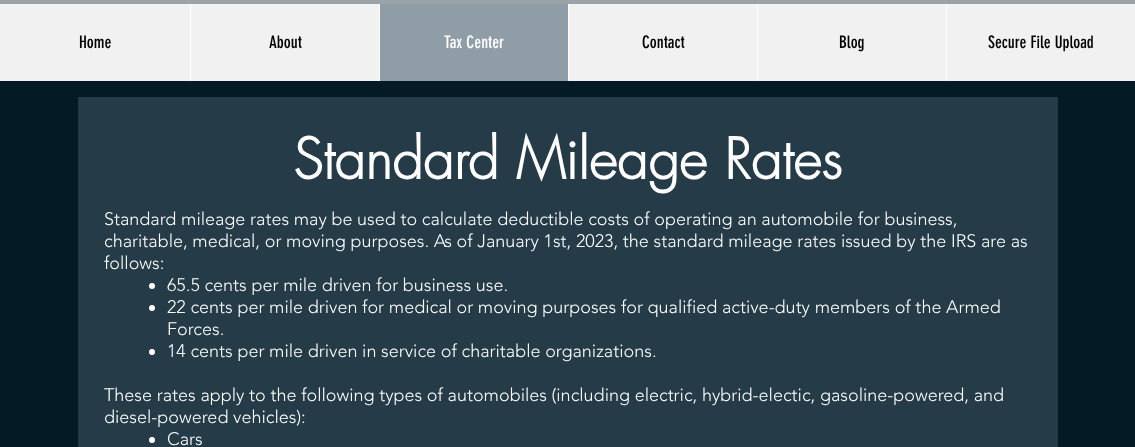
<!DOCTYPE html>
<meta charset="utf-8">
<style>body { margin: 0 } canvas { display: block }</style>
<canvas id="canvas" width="1135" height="447"></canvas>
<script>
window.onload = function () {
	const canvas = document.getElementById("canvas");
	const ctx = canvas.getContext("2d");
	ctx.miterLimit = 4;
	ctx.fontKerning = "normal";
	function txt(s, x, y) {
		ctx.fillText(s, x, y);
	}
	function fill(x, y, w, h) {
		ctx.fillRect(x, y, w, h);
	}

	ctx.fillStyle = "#041A25";
	fill(0, 0, 1135, 447);
	ctx.fillStyle = "#9BA3A8";
	fill(0, 0, 1135, 4);
	ctx.fillStyle = "#F1F1F1";
	fill(0, 4, 1135, 77);
	ctx.fillStyle = "#FFFFFF";
	fill(190, 4, 1, 77);
	ctx.fillStyle = "#8F9DA7";
	fill(380, 4, 188, 77);
	ctx.fillStyle = "#FFFFFF";
	fill(379, 4, 1, 77);
	fill(568, 4, 1, 77);
	fill(757, 4, 1, 77);
	fill(946, 4, 1, 77);
	ctx.fillStyle = "#253C48";
	fill(78, 97, 980, 350);
	ctx.fillStyle = "#FFFFFF";
	ctx.beginPath();
	ctx.arc(152, 286, 3, 0, Math.PI * 2);
	ctx.fill();
	ctx.beginPath();
	ctx.arc(152, 308, 3, 0, Math.PI * 2);
	ctx.fill();
	ctx.beginPath();
	ctx.arc(152, 352, 3, 0, Math.PI * 2);
	ctx.fill();
	ctx.beginPath();
	ctx.arc(152, 440, 3, 0, Math.PI * 2);
	ctx.fill();
	ctx.font = "17px 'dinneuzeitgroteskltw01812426'";
	ctx.fillStyle = "#000000";
	txt("Home", 79, 48);
	txt("About", 269, 48);
	ctx.fillStyle = "#FFFFFF";
	txt("Tax Center", 444, 48);
	ctx.fillStyle = "#000000";
	txt("Contact", 642, 48);
	txt("Blog", 839, 48);
	txt("Secure File Upload", 988, 48);
	ctx.font = "bold 55px futura";
	ctx.fillStyle = "#FFFFFF";
	txt("Standard Mileage Rates", 293, 179);
	ctx.font = "300 18px 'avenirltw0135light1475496'";
	txt("Standard mileage rates may be used to calculate deductible costs of operating an automobile for business,", 104, 225);
	txt("charitable, medical, or moving purposes. As of January 1st, 2023, the standard mileage rates issued by the IRS are as", 104, 247);
	txt("follows:", 104, 269);
	txt("65.5 cents per mile driven for business use.", 167, 291);
	txt("22 cents per mile driven for medical or moving purposes for qualified active-duty members of the Armed", 167, 313);
	txt("Forces.", 167, 335);
	txt("14 cents per mile driven in service of charitable organizations.", 167, 357);
	txt("These rates apply to the following types of automobiles (including electric, hybrid-electic, gasoline-powered, and", 104, 401);
	txt("diesel-powered vehicles):", 104, 423);
	txt("Cars", 167, 445);
};
</script>
